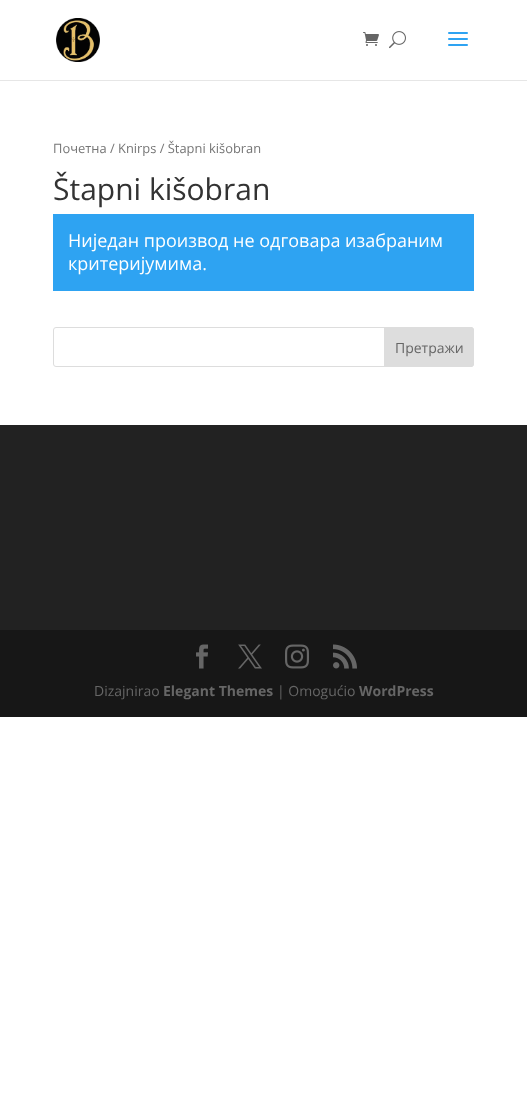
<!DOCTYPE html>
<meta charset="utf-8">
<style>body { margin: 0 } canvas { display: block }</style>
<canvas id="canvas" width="527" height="1104"></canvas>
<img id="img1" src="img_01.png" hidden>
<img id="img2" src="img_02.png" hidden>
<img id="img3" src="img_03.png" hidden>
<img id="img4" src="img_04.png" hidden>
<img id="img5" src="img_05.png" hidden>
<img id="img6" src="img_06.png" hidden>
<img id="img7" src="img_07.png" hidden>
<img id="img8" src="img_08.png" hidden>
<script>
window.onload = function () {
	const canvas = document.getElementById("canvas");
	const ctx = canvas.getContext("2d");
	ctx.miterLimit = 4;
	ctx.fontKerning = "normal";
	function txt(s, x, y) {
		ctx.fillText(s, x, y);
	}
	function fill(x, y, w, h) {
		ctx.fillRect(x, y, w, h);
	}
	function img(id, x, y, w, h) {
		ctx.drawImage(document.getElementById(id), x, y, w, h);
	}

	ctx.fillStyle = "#FFFFFF";
	fill(0, 0, 527, 1104);
	ctx.fillStyle = "#E6E6E6";
	fill(0, 80, 527, 1);
	img("img1", 56, 18, 44, 44);
	img("img2", 363, 32, 16, 14);
	img("img3", 389, 31, 17, 18);
	img("img4", 448, 32, 20, 14);
	ctx.fillStyle = "#2EA3F2";
	fill(53, 214, 421, 77);
	ctx.beginPath();
	ctx.roundRect(53.5, 327.5, 420, 39, 2.5);
	ctx.strokeStyle = "#DDDDDD";
	ctx.stroke();
	ctx.fillStyle = "#DDDDDD";
	ctx.beginPath();
	ctx.roundRect(384.5, 327.5, 89, 39, [0, 2.5, 2.5, 0]);
	ctx.fill();
	ctx.stroke();
	ctx.fillStyle = "#222222";
	fill(0, 425, 527, 205);
	ctx.fillStyle = "#171717";
	fill(0, 630, 527, 87);
	img("img5", 196, 644, 12, 25);
	img("img6", 238, 644, 24, 25);
	img("img7", 285, 644, 24, 25);
	img("img8", 333, 644, 24, 25);
	ctx.font = "12.9px Open Sans";
	ctx.fillStyle = "#767676";
	txt("Почетна / Knirps / Štapni kišobran", 53, 153);
	ctx.font = "30px Open Sans";
	ctx.fillStyle = "#333333";
	txt("Štapni kišobran", 53, 200);
	ctx.font = "18px Open Sans";
	ctx.fillStyle = "#FFFFFF";
	txt("Ниједан производ не одговара изабраним", 68, 247);
	txt("критеријумима.", 68, 270);
	ctx.font = "14px Open Sans";
	ctx.fillStyle = "#666666";
	txt("Претражи", 395, 353);
	txt("Dizajnirao", 94, 696);
	ctx.font = "bold 14px Open Sans";
	txt("Elegant Themes", 163, 696);
	ctx.font = "14px Open Sans";
	txt("| Omogućio", 277, 696);
	ctx.font = "bold 14px Open Sans";
	txt("WordPress", 359, 696);
};
</script>
